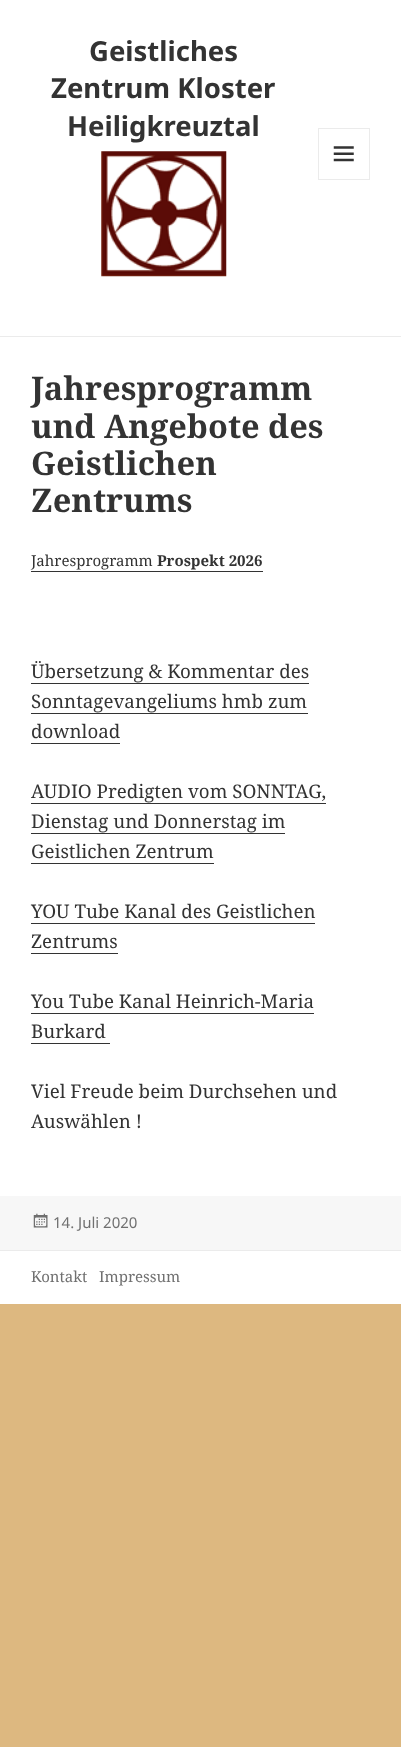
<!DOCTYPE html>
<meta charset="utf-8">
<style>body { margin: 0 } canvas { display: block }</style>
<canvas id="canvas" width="401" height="1747"></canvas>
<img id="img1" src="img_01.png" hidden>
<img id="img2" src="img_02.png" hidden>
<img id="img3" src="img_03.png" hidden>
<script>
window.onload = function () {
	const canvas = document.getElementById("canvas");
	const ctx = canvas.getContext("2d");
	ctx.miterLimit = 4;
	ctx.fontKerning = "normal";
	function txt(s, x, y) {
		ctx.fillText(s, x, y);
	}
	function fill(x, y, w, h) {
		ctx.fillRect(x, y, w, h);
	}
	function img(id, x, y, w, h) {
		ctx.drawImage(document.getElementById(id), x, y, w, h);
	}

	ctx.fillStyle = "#DDB880";
	fill(0, 0, 401, 1747);
	ctx.fillStyle = "#FFFFFF";
	fill(0, 0, 401, 1196);
	ctx.fillStyle = "#EBEBEB";
	fill(0, 336, 401, 1);
	img("img1", 101, 151, 126, 126);
	ctx.strokeStyle = "#EBEBEB";
	ctx.strokeRect(318.5, 128.5, 51, 51);
	img("img2", 333, 146, 21, 16);
	ctx.fillStyle = "#333333";
	fill(31, 571, 232, 1);
	fill(31, 683, 278, 1);
	fill(31, 713, 277, 1);
	fill(31, 743, 89, 1);
	fill(31, 803, 295, 1);
	fill(31, 833, 254, 1);
	fill(31, 863, 183, 1);
	fill(31, 923, 284, 1);
	fill(31, 953, 87, 1);
	fill(31, 1013, 283, 1);
	fill(31, 1043, 79, 1);
	ctx.fillStyle = "#F7F7F7";
	fill(0, 1196, 401, 54);
	img("img3", 33, 1213, 15, 15);
	ctx.fillStyle = "#FFFFFF";
	fill(0, 1251, 401, 53);
	ctx.fillStyle = "#EBEBEB";
	fill(0, 1250, 401, 1);
	ctx.font = "bold 27.5px Noto Sans";
	ctx.fillStyle = "#333333";
	txt("Geistliches", 89, 61);
	txt("Zentrum Kloster", 51, 98);
	txt("Heiligkreuztal", 67, 136);
	ctx.font = "bold 32.5px Noto Serif";
	txt("Jahresprogramm", 31, 400);
	txt("und Angebote des", 31, 438);
	txt("Geistlichen", 31, 475);
	txt("Zentrums", 31, 512);
	ctx.font = "15px Noto Serif";
	txt("Jahresprogramm", 31, 566);
	ctx.font = "bold 15px Noto Serif";
	txt("Prospekt 2026", 157, 566);
	ctx.font = "18.75px Noto Serif";
	txt("Übersetzung & Kommentar des", 31, 678);
	txt("Sonntagevangeliums hmb zum", 31, 708);
	txt("download", 31, 738);
	txt("AUDIO Predigten vom SONNTAG,", 31, 798);
	txt("Dienstag und Donnerstag im", 31, 828);
	txt("Geistlichen Zentrum", 31, 858);
	txt("YOU Tube Kanal des Geistlichen", 31, 918);
	txt("Zentrums", 31, 948);
	txt("You Tube Kanal Heinrich-Maria", 31, 1008);
	txt("Burkard", 31, 1038);
	txt("Viel Freude beim Durchsehen und", 31, 1098);
	txt("Auswählen !", 31, 1128);
	ctx.font = "15px Noto Sans";
	ctx.fillStyle = "#707070";
	txt("14. Juli 2020", 53, 1228);
	ctx.font = "15px Noto Serif";
	txt("Kontakt", 31, 1282);
	txt("Impressum", 99, 1282);
};
</script>
